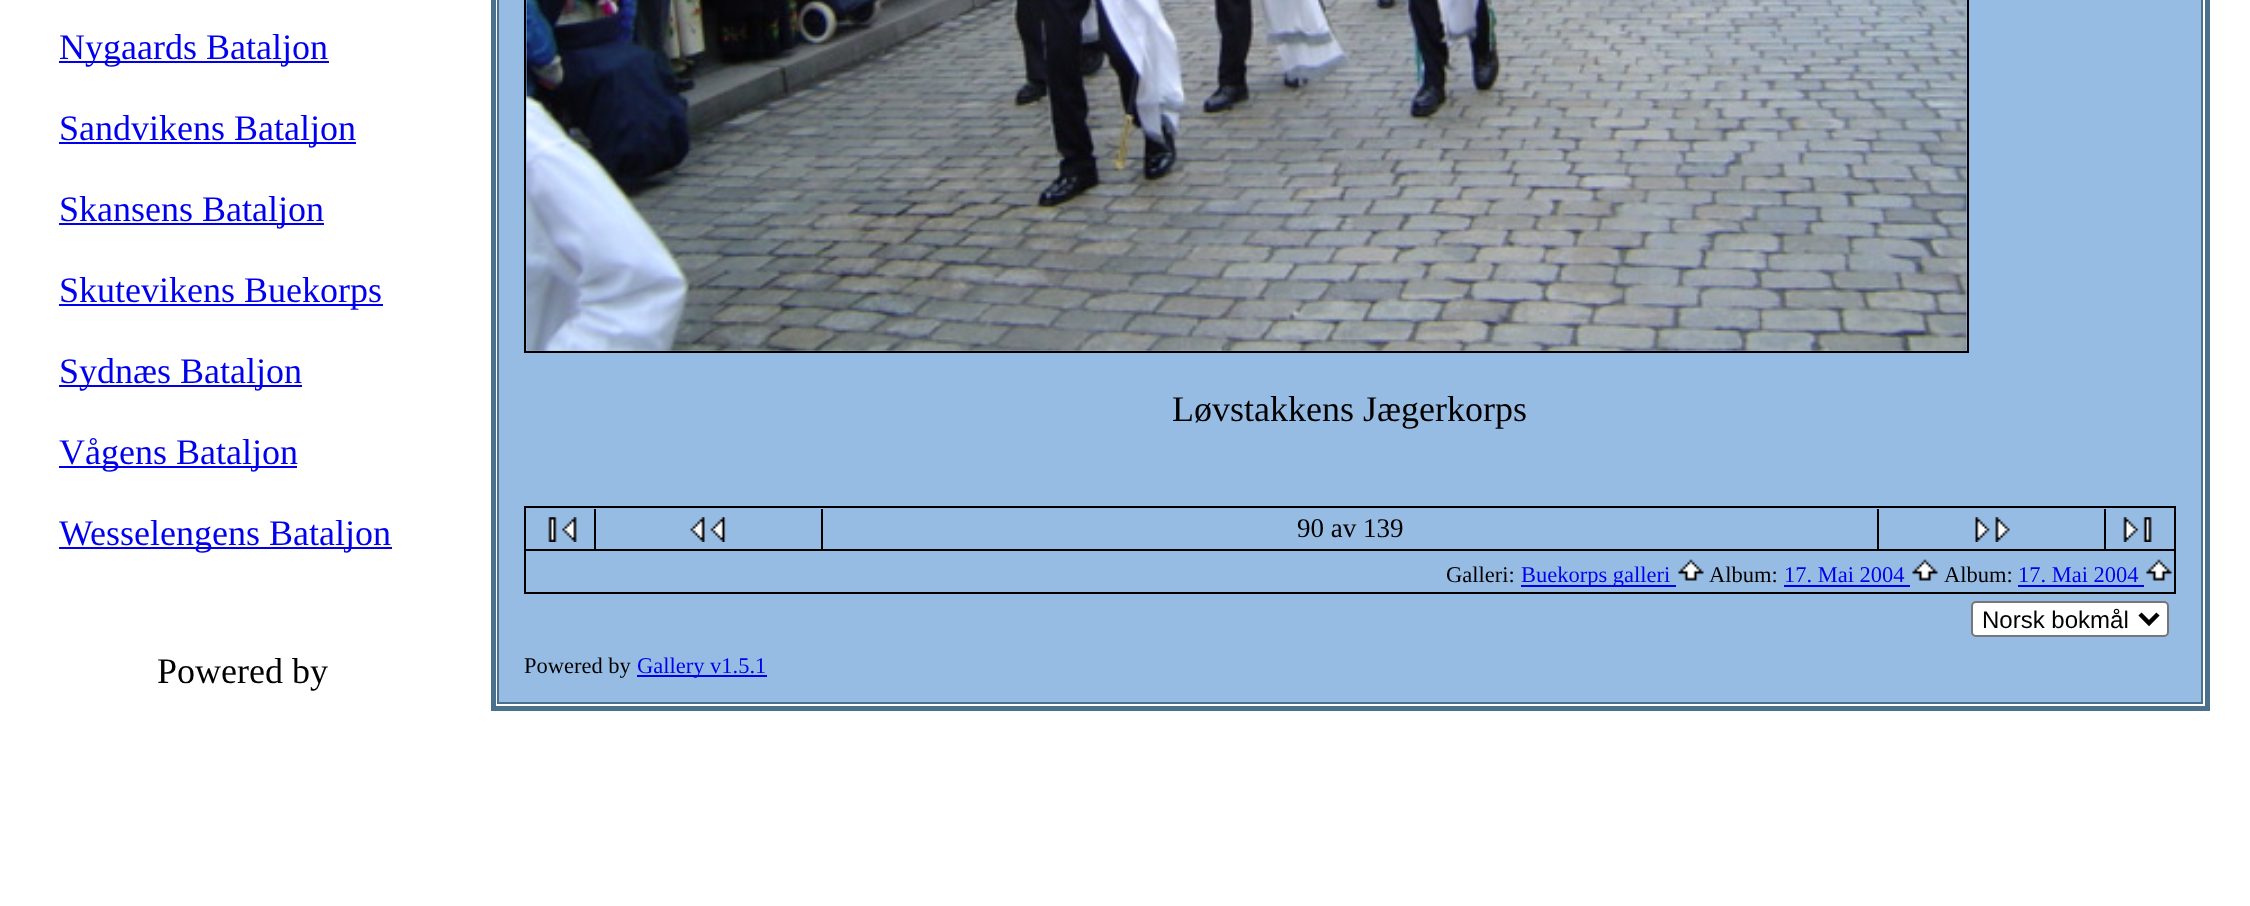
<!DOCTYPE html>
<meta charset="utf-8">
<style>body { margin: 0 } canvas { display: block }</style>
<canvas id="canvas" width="2250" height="906"></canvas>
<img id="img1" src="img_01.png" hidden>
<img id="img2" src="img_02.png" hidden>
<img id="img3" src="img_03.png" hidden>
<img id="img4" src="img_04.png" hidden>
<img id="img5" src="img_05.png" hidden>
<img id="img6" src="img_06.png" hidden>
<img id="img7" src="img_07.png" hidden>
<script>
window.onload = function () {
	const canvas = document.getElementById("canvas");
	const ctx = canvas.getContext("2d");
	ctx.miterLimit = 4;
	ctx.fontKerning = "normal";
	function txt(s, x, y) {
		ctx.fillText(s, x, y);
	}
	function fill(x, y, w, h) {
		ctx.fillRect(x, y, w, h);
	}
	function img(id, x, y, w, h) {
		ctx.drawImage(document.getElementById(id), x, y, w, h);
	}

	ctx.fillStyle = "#FFFFFF";
	fill(0, 0, 2250, 906);
	ctx.fillStyle = "#0000EE";
	fill(59, 61, 270, 2);
	fill(59, 142, 297, 2);
	fill(59, 223, 265, 2);
	fill(59, 304, 324, 2);
	fill(59, 385, 243, 2);
	fill(59, 466, 238, 2);
	fill(59, 547, 333, 2);
	ctx.strokeStyle = "#4A708B";
	ctx.lineWidth = 5;
	ctx.strokeRect(493.5, -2.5, 1714, 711);
	ctx.fillStyle = "#97BCE4";
	ctx.beginPath();
	ctx.rect(498, -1, 1704, 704);
	ctx.fill();
	ctx.lineWidth = 2;
	ctx.stroke();
	ctx.fillStyle = "#000000";
	fill(524, 0, 2, 351);
	img("img1", 526, 0, 1441, 351);
	fill(1967, 0, 2, 351);
	fill(524, 351, 1445, 2);
	ctx.strokeStyle = "#000000";
	ctx.strokeRect(525, 507, 1650, 43);
	fill(594, 509, 2, 40);
	img("img2", 548, 517, 29, 25);
	fill(821, 509, 2, 40);
	img("img3", 690, 517, 36, 25);
	fill(1877, 509, 2, 40);
	img("img4", 1975, 517, 35, 25);
	fill(2104, 509, 2, 40);
	img("img5", 2123, 517, 29, 25);
	fill(2174, 551, 2, 43);
	fill(524, 592, 1652, 2);
	fill(524, 551, 2, 43);
	ctx.fillStyle = "#0000EE";
	fill(1521, 585, 155, 2);
	img("img6", 1678, 559, 26, 22);
	fill(1784, 585, 126, 2);
	img("img7", 1912, 559, 26, 22);
	fill(2018, 585, 126, 2);
	img("img6", 2146, 559, 26, 22);
	ctx.fillStyle = "#FFFFFF";
	ctx.beginPath();
	ctx.roundRect(1972, 602, 196, 34, 4);
	ctx.fill();
	ctx.strokeStyle = "#767676";
	ctx.stroke();
	ctx.beginPath();
	ctx.moveTo(2140, 614);
	ctx.lineTo(2149, 623);
	ctx.lineTo(2158, 614);
	ctx.strokeStyle = "#000000";
	ctx.lineWidth = 4.5;
	ctx.stroke();
	ctx.fillStyle = "#0000EE";
	fill(637, 675, 130, 2);
	ctx.font = "36px Liberation Serif";
	txt("Nygaards Bataljon", 59, 59);
	txt("Sandvikens Bataljon", 59, 140);
	txt("Skansens Bataljon", 59, 221);
	txt("Skutevikens Buekorps", 59, 302);
	txt("Sydnæs Bataljon", 59, 383);
	txt("Vågens Bataljon", 59, 464);
	txt("Wesselengens Bataljon", 59, 545);
	ctx.fillStyle = "#000000";
	txt("Powered by", 157, 683);
	txt("Løvstakkens Jægerkorps", 1172, 421);
	ctx.font = "27px Liberation Serif";
	txt("90 av 139", 1297, 537);
	ctx.font = "22.5px Liberation Serif";
	txt("Galleri:", 1446, 582);
	ctx.fillStyle = "#0000EE";
	txt("Buekorps galleri", 1521, 582);
	ctx.fillStyle = "#000000";
	txt("Album:", 1709, 582);
	ctx.fillStyle = "#0000EE";
	txt("17. Mai 2004", 1784, 582);
	ctx.fillStyle = "#000000";
	txt("Album:", 1944, 582);
	ctx.fillStyle = "#0000EE";
	txt("17. Mai 2004", 2018, 582);
	ctx.font = "24px Liberation Sans";
	ctx.fillStyle = "#000000";
	txt("Norsk bokmål", 1982, 628);
	ctx.font = "22.5px Liberation Serif";
	txt("Powered by", 524, 673);
	ctx.fillStyle = "#0000EE";
	txt("Gallery v1.5.1", 637, 673);
};
</script>
